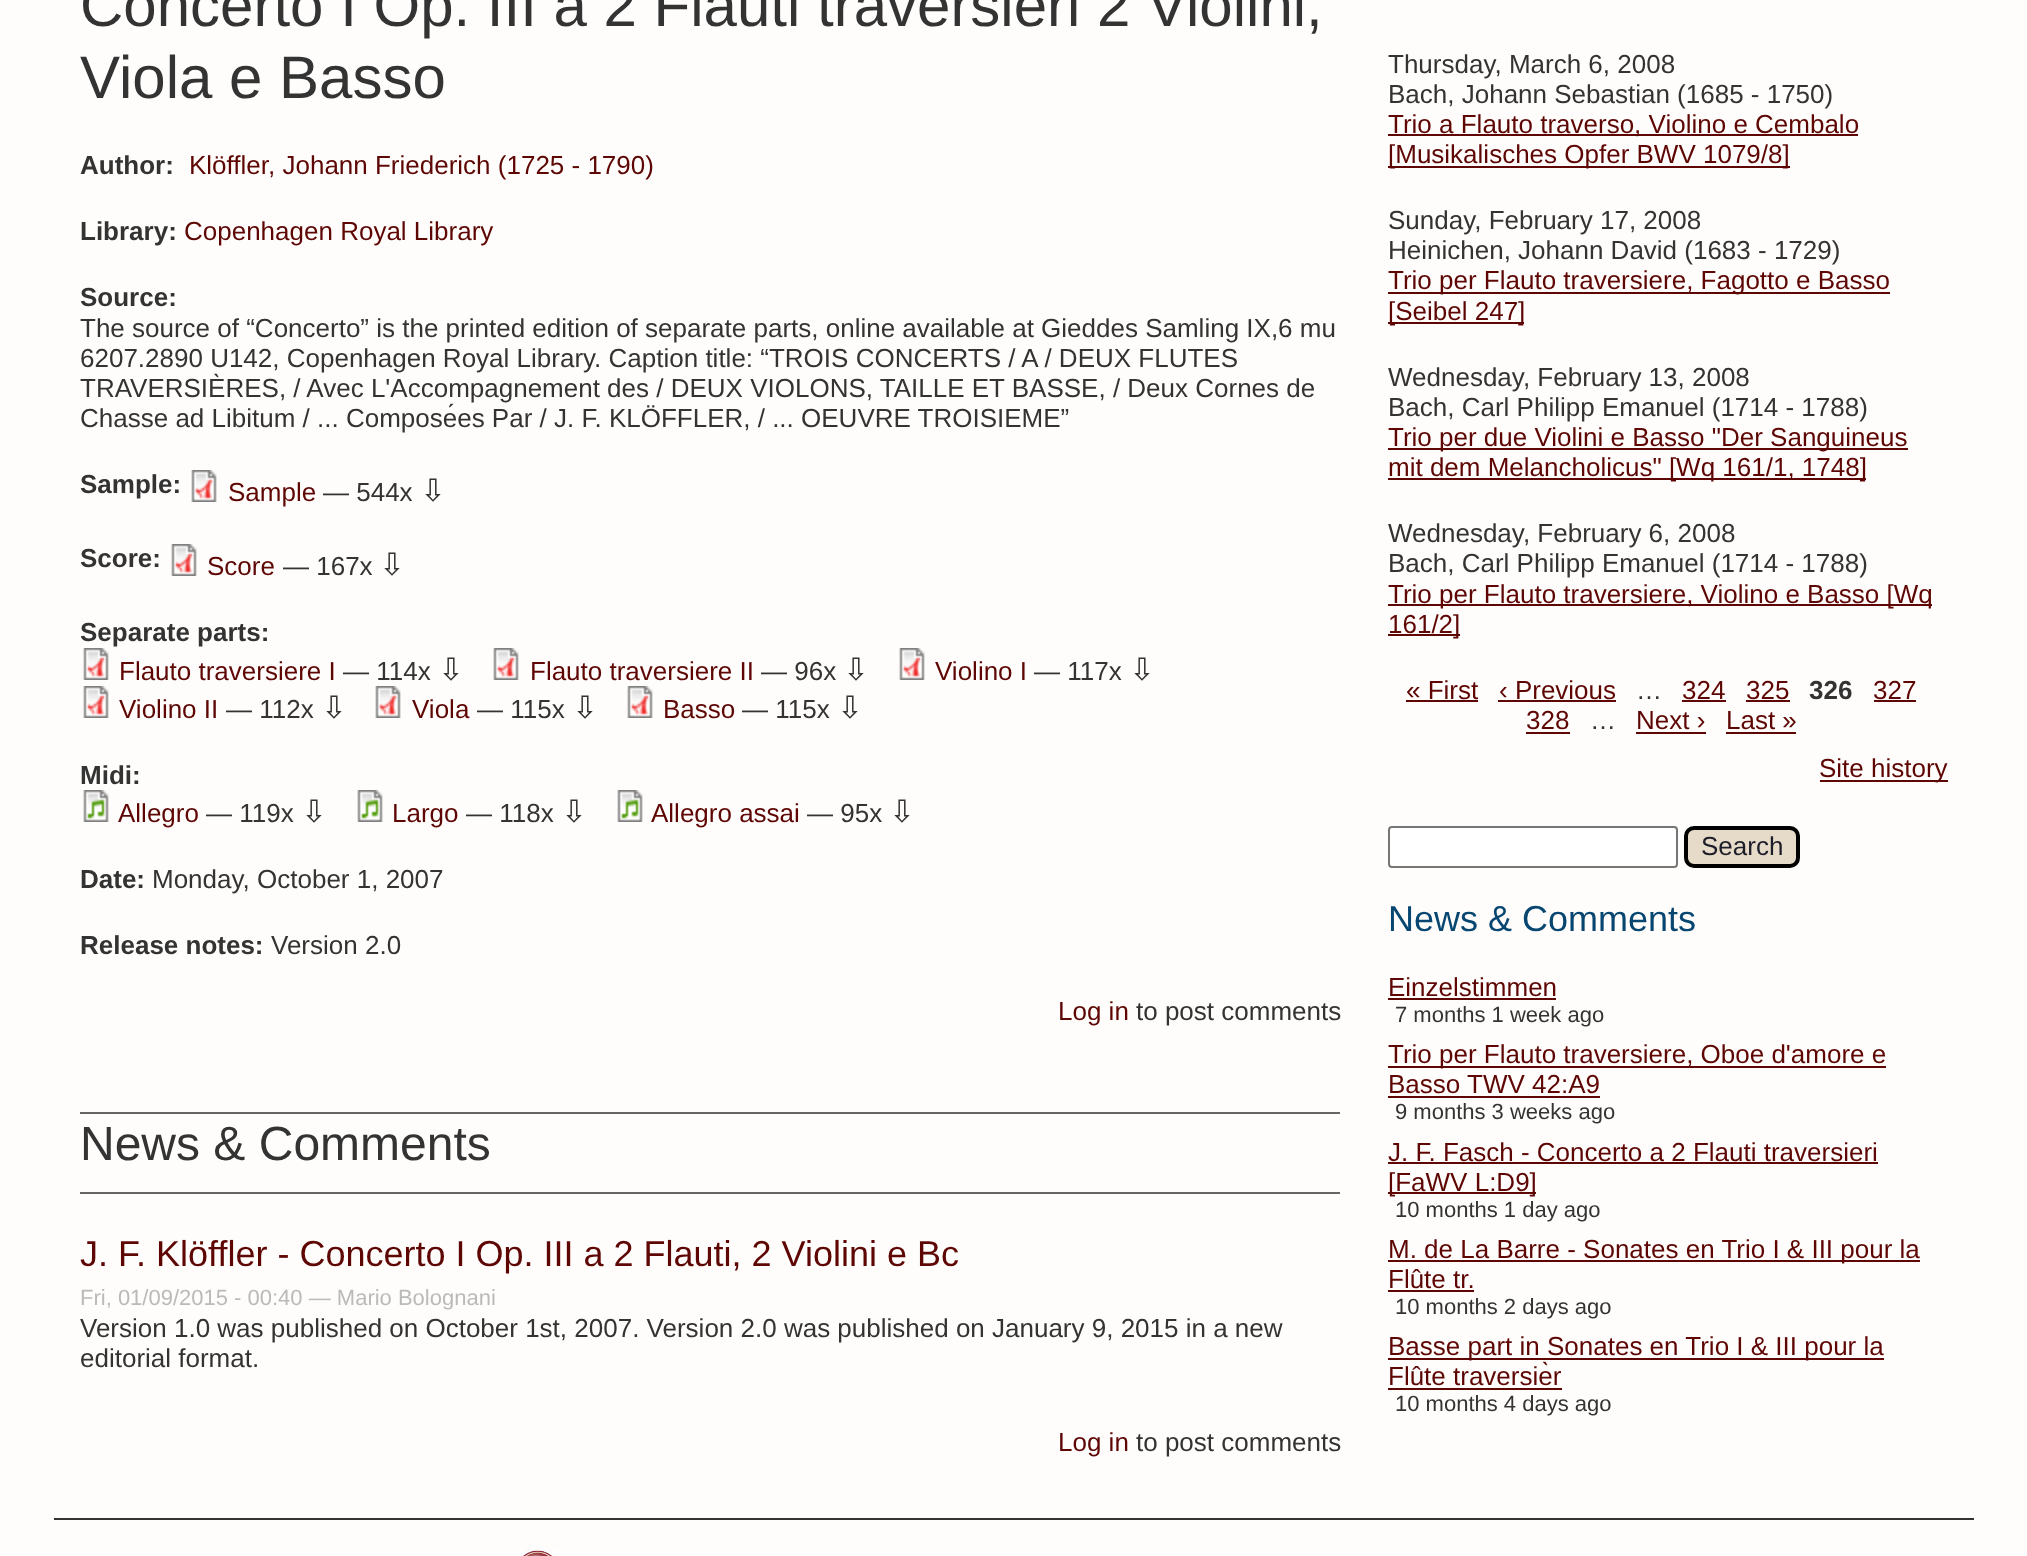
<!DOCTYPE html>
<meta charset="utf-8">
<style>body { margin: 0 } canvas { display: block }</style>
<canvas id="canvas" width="2027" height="1556"></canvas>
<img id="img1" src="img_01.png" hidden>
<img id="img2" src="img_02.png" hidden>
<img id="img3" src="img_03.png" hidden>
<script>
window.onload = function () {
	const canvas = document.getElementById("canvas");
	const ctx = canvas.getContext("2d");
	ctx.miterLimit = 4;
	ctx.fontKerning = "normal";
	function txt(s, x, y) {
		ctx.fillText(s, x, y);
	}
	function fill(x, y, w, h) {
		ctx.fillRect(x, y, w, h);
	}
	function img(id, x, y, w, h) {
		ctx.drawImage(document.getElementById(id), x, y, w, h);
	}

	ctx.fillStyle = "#FFFDFB";
	fill(0, 0, 2027, 1556);
	img("img1", 191, 470, 26, 32);
	img("img1", 171, 544, 26, 32);
	img("img1", 83, 648, 26, 32);
	img("img1", 493, 648, 26, 32);
	img("img1", 899, 648, 26, 32);
	img("img1", 83, 686, 26, 32);
	img("img1", 375, 686, 26, 32);
	img("img1", 627, 686, 26, 32);
	img("img2", 83, 790, 26, 32);
	img("img2", 357, 790, 26, 32);
	img("img2", 617, 790, 26, 32);
	ctx.fillStyle = "#666666";
	fill(80, 1112, 1260, 2);
	fill(80, 1192, 1260, 2);
	ctx.fillStyle = "#5D0604";
	fill(1388, 134, 470, 2);
	fill(1388, 166, 402, 2);
	fill(1388, 292, 502, 2);
	fill(1388, 322, 136, 2);
	fill(1388, 448, 520, 2);
	fill(1388, 478, 478, 2);
	fill(1388, 604, 544, 2);
	fill(1388, 634, 72, 2);
	fill(1406, 700, 72, 2);
	fill(1498, 700, 118, 2);
	fill(1682, 700, 44, 2);
	fill(1746, 700, 44, 2);
	fill(1874, 700, 42, 2);
	fill(1526, 732, 44, 2);
	fill(1636, 732, 70, 2);
	fill(1726, 732, 70, 2);
	fill(1820, 780, 128, 2);
	ctx.fillStyle = "#FFFFFF";
	ctx.beginPath();
	ctx.roundRect(1389, 827, 288, 40, 3);
	ctx.fill();
	ctx.strokeStyle = "#767676";
	ctx.lineWidth = 2;
	ctx.stroke();
	ctx.fillStyle = "#E6DBC8";
	ctx.beginPath();
	ctx.roundRect(1686, 828, 112, 38, 8);
	ctx.fill();
	ctx.strokeStyle = "#000000";
	ctx.lineWidth = 4;
	ctx.stroke();
	ctx.fillStyle = "#5D0604";
	fill(1388, 998, 168, 2);
	fill(1388, 1066, 498, 2);
	fill(1388, 1096, 212, 2);
	fill(1388, 1162, 490, 2);
	fill(1388, 1192, 148, 2);
	fill(1388, 1260, 532, 2);
	fill(1388, 1290, 86, 2);
	fill(1388, 1358, 496, 2);
	fill(1388, 1388, 174, 2);
	ctx.fillStyle = "#333333";
	fill(54, 1518, 1920, 2);
	img("img3", 519, 1550, 38, 6);
	ctx.font = "60px Liberation Sans";
	txt("Concerto I Op. III a 2 Flauti traversieri 2 Violini,", 80, 26);
	txt("Viola e Basso", 80, 98);
	ctx.font = "bold 26px Liberation Sans";
	txt("Author:", 80, 174);
	ctx.font = "26px Liberation Sans";
	ctx.fillStyle = "#5D0604";
	txt("Klöffler, Johann Friederich (1725 - 1790)", 189, 174);
	ctx.font = "bold 26px Liberation Sans";
	ctx.fillStyle = "#333333";
	txt("Library:", 80, 240);
	ctx.font = "26px Liberation Sans";
	ctx.fillStyle = "#5D0604";
	txt("Copenhagen Royal Library", 184, 240);
	ctx.font = "bold 26px Liberation Sans";
	ctx.fillStyle = "#333333";
	txt("Source:", 80, 306);
	ctx.font = "26px Liberation Sans";
	txt("The source of “Concerto” is the printed edition of separate parts, online available at Gieddes Samling IX,6 mu", 80, 337);
	txt("6207.2890 U142, Copenhagen Royal Library. Caption title: “TROIS CONCERTS / A / DEUX FLUTES", 80, 367);
	txt("TRAVERSIÈRES, / Avec L'Accompagnement des / DEUX VIOLONS, TAILLE ET BASSE, / Deux Cornes de", 80, 397);
	txt("Chasse ad Libitum / ... Composées Par / J. F. KLÖFFLER, / ... OEUVRE TROISIEME”", 80, 427);
	ctx.font = "bold 26px Liberation Sans";
	txt("Sample:", 80, 493);
	ctx.font = "26px Liberation Sans";
	ctx.fillStyle = "#5D0604";
	txt("Sample", 228, 501);
	ctx.fillStyle = "#333333";
	txt("— 544x", 323, 501);
	ctx.font = "31px DejaVu Sans";
	txt("⇩", 420, 501);
	ctx.font = "bold 26px Liberation Sans";
	txt("Score:", 80, 567);
	ctx.font = "26px Liberation Sans";
	ctx.fillStyle = "#5D0604";
	txt("Score", 207, 575);
	ctx.fillStyle = "#333333";
	txt("— 167x", 283, 575);
	ctx.font = "31px DejaVu Sans";
	txt("⇩", 379, 575);
	ctx.font = "bold 26px Liberation Sans";
	txt("Separate parts:", 80, 641);
	ctx.font = "26px Liberation Sans";
	ctx.fillStyle = "#5D0604";
	txt("Flauto traversiere I", 119, 680);
	ctx.fillStyle = "#333333";
	txt("— 114x", 343, 680);
	ctx.font = "31px DejaVu Sans";
	txt("⇩", 438, 680);
	ctx.font = "26px Liberation Sans";
	ctx.fillStyle = "#5D0604";
	txt("Flauto traversiere II", 530, 680);
	ctx.fillStyle = "#333333";
	txt("— 96x", 761, 680);
	ctx.font = "31px DejaVu Sans";
	txt("⇩", 843, 680);
	ctx.font = "26px Liberation Sans";
	ctx.fillStyle = "#5D0604";
	txt("Violino I", 935, 680);
	ctx.fillStyle = "#333333";
	txt("— 117x", 1034, 680);
	ctx.font = "31px DejaVu Sans";
	txt("⇩", 1129, 680);
	ctx.font = "26px Liberation Sans";
	ctx.fillStyle = "#5D0604";
	txt("Violino II", 119, 718);
	ctx.fillStyle = "#333333";
	txt("— 112x", 226, 718);
	ctx.font = "31px DejaVu Sans";
	txt("⇩", 321, 718);
	ctx.font = "26px Liberation Sans";
	ctx.fillStyle = "#5D0604";
	txt("Viola", 412, 718);
	ctx.fillStyle = "#333333";
	txt("— 115x", 477, 718);
	ctx.font = "31px DejaVu Sans";
	txt("⇩", 572, 718);
	ctx.font = "26px Liberation Sans";
	ctx.fillStyle = "#5D0604";
	txt("Basso", 663, 718);
	ctx.fillStyle = "#333333";
	txt("— 115x", 742, 718);
	ctx.font = "31px DejaVu Sans";
	txt("⇩", 837, 718);
	ctx.font = "bold 26px Liberation Sans";
	txt("Midi:", 80, 784);
	ctx.font = "26px Liberation Sans";
	ctx.fillStyle = "#5D0604";
	txt("Allegro", 118, 822);
	ctx.fillStyle = "#333333";
	txt("— 119x", 206, 822);
	ctx.font = "31px DejaVu Sans";
	txt("⇩", 301, 822);
	ctx.font = "26px Liberation Sans";
	ctx.fillStyle = "#5D0604";
	txt("Largo", 392, 822);
	ctx.fillStyle = "#333333";
	txt("— 118x", 466, 822);
	ctx.font = "31px DejaVu Sans";
	txt("⇩", 561, 822);
	ctx.font = "26px Liberation Sans";
	ctx.fillStyle = "#5D0604";
	txt("Allegro assai", 651, 822);
	ctx.fillStyle = "#333333";
	txt("— 95x", 807, 822);
	ctx.font = "31px DejaVu Sans";
	txt("⇩", 889, 822);
	ctx.font = "bold 26px Liberation Sans";
	txt("Date:", 80, 888);
	ctx.font = "26px Liberation Sans";
	txt("Monday, October 1, 2007", 152, 888);
	ctx.font = "bold 26px Liberation Sans";
	txt("Release notes:", 80, 954);
	ctx.font = "26px Liberation Sans";
	txt("Version 2.0", 271, 954);
	ctx.fillStyle = "#5D0604";
	txt("Log in", 1058, 1020);
	ctx.fillStyle = "#333333";
	txt("to post comments", 1136, 1020);
	ctx.font = "48px Liberation Sans";
	txt("News & Comments", 80, 1160);
	ctx.font = "36px Liberation Sans";
	ctx.fillStyle = "#5D0604";
	txt("J. F. Klöffler - Concerto I Op. III a 2 Flauti, 2 Violini e Bc", 80, 1266);
	ctx.font = "22px Liberation Sans";
	ctx.fillStyle = "#BABABA";
	txt("Fri, 01/09/2015 - 00:40 — Mario Bolognani", 80, 1305);
	ctx.font = "26px Liberation Sans";
	ctx.fillStyle = "#333333";
	txt("Version 1.0 was published on October 1st, 2007. Version 2.0 was published on January 9, 2015 in a new", 80, 1337);
	txt("editorial format.", 80, 1367);
	ctx.fillStyle = "#5D0604";
	txt("Log in", 1058, 1451);
	ctx.fillStyle = "#333333";
	txt("to post comments", 1136, 1451);
	txt("Thursday, March 6, 2008", 1388, 73);
	txt("Bach, Johann Sebastian (1685 - 1750)", 1388, 103);
	ctx.fillStyle = "#5D0604";
	txt("Trio a Flauto traverso, Violino e Cembalo", 1388, 133);
	txt("[Musikalisches Opfer BWV 1079/8]", 1388, 163);
	ctx.fillStyle = "#333333";
	txt("Sunday, February 17, 2008", 1388, 229);
	txt("Heinichen, Johann David (1683 - 1729)", 1388, 259);
	ctx.fillStyle = "#5D0604";
	txt("Trio per Flauto traversiere, Fagotto e Basso", 1388, 289);
	txt("[Seibel 247]", 1388, 320);
	ctx.fillStyle = "#333333";
	txt("Wednesday, February 13, 2008", 1388, 386);
	txt("Bach, Carl Philipp Emanuel (1714 - 1788)", 1388, 416);
	ctx.fillStyle = "#5D0604";
	txt("Trio per due Violini e Basso \"Der Sanguineus", 1388, 446);
	txt("mit dem Melancholicus\" [Wq 161/1, 1748]", 1388, 476);
	ctx.fillStyle = "#333333";
	txt("Wednesday, February 6, 2008", 1388, 542);
	txt("Bach, Carl Philipp Emanuel (1714 - 1788)", 1388, 572);
	ctx.fillStyle = "#5D0604";
	txt("Trio per Flauto traversiere, Violino e Basso [Wq", 1388, 603);
	txt("161/2]", 1388, 633);
	txt("« First", 1406, 699);
	txt("‹ Previous", 1499, 699);
	ctx.fillStyle = "#333333";
	txt("…", 1636, 699);
	ctx.fillStyle = "#5D0604";
	txt("324", 1682, 699);
	txt("325", 1746, 699);
	ctx.font = "bold 26px Liberation Sans";
	ctx.fillStyle = "#333333";
	txt("326", 1809, 699);
	ctx.font = "26px Liberation Sans";
	ctx.fillStyle = "#5D0604";
	txt("327", 1873, 699);
	txt("328", 1526, 729);
	ctx.fillStyle = "#333333";
	txt("…", 1590, 729);
	ctx.fillStyle = "#5D0604";
	txt("Next ›", 1636, 729);
	txt("Last »", 1726, 729);
	txt("Site history", 1819, 777);
	ctx.fillStyle = "#1D1D2A";
	txt("Search", 1701, 855);
	ctx.font = "36px Liberation Sans";
	ctx.fillStyle = "#074670";
	txt("News & Comments", 1388, 931);
	ctx.font = "26px Liberation Sans";
	ctx.fillStyle = "#5D0604";
	txt("Einzelstimmen", 1388, 996);
	ctx.font = "22px Liberation Sans";
	ctx.fillStyle = "#333333";
	txt("7 months 1 week ago", 1395, 1022);
	ctx.font = "26px Liberation Sans";
	ctx.fillStyle = "#5D0604";
	txt("Trio per Flauto traversiere, Oboe d'amore e", 1388, 1063);
	txt("Basso TWV 42:A9", 1388, 1093);
	ctx.font = "22px Liberation Sans";
	ctx.fillStyle = "#333333";
	txt("9 months 3 weeks ago", 1395, 1119);
	ctx.font = "26px Liberation Sans";
	ctx.fillStyle = "#5D0604";
	txt("J. F. Fasch - Concerto a 2 Flauti traversieri", 1388, 1161);
	txt("[FaWV L:D9]", 1388, 1191);
	ctx.font = "22px Liberation Sans";
	ctx.fillStyle = "#333333";
	txt("10 months 1 day ago", 1395, 1217);
	ctx.font = "26px Liberation Sans";
	ctx.fillStyle = "#5D0604";
	txt("M. de La Barre - Sonates en Trio I & III pour la", 1388, 1258);
	txt("Flûte tr.", 1388, 1288);
	ctx.font = "22px Liberation Sans";
	ctx.fillStyle = "#333333";
	txt("10 months 2 days ago", 1395, 1314);
	ctx.font = "26px Liberation Sans";
	ctx.fillStyle = "#5D0604";
	txt("Basse part in Sonates en Trio I & III pour la", 1388, 1355);
	txt("Flûte traversièr", 1388, 1385);
	ctx.font = "22px Liberation Sans";
	ctx.fillStyle = "#333333";
	txt("10 months 4 days ago", 1395, 1411);
};
</script>
